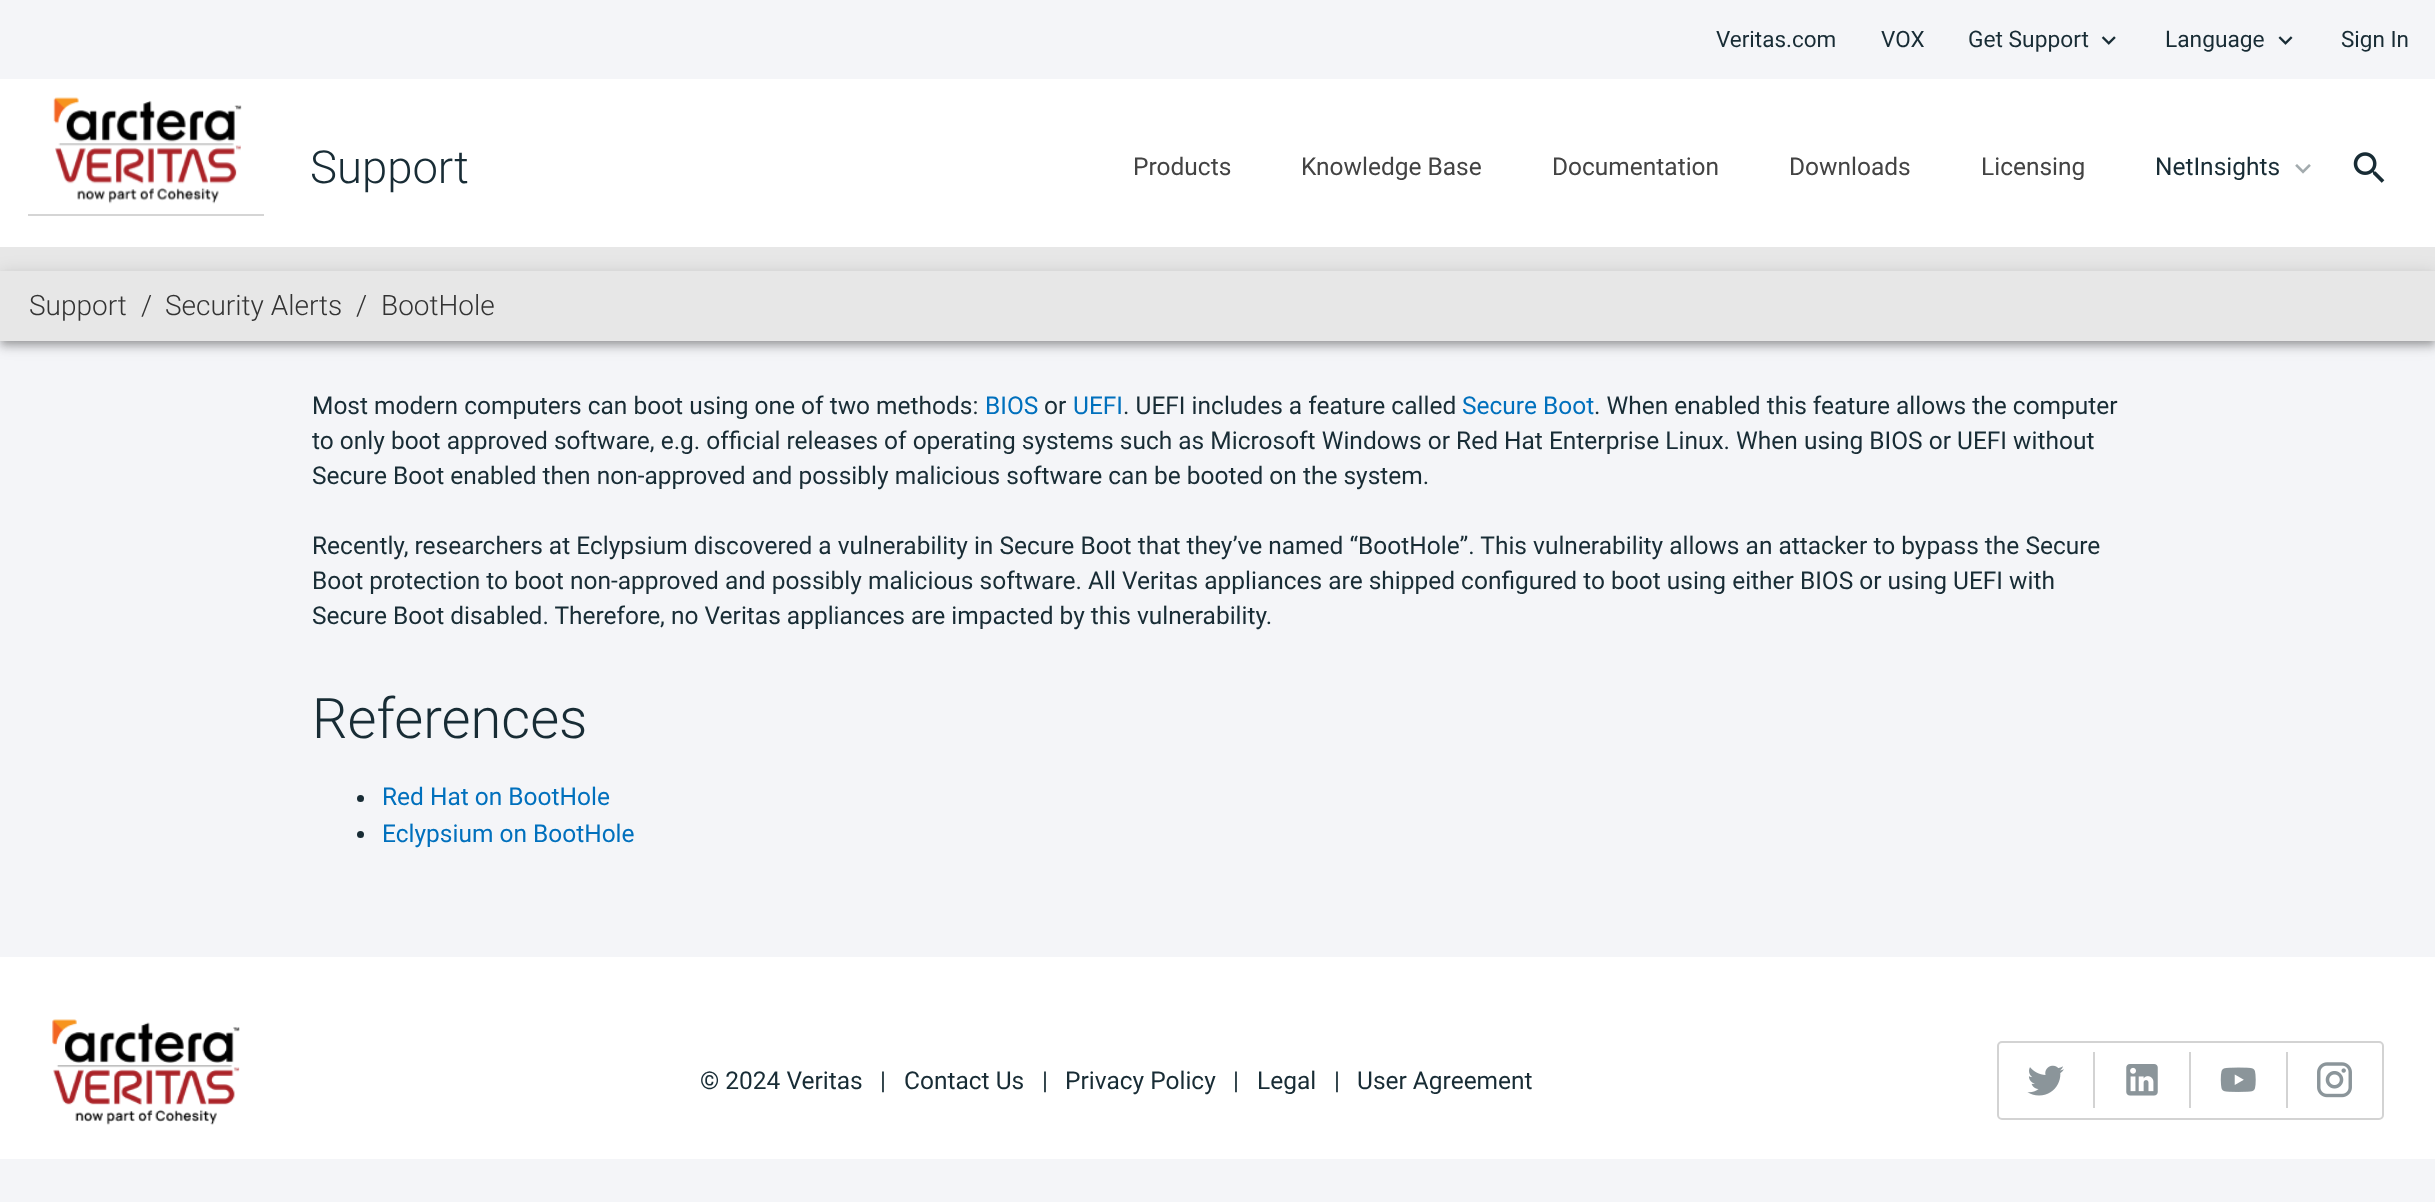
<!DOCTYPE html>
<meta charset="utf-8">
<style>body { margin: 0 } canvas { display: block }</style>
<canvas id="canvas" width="2435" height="1202"></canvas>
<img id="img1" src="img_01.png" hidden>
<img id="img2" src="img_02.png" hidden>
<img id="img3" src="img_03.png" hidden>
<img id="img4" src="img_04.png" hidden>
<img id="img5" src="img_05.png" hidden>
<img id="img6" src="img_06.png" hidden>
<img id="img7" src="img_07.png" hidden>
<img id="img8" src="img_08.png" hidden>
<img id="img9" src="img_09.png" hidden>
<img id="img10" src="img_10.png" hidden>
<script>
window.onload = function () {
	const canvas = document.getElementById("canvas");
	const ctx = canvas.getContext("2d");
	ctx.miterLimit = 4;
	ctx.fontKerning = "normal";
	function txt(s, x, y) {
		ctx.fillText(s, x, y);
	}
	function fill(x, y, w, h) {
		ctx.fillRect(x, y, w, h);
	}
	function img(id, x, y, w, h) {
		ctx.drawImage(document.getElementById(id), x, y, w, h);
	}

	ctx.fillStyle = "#F4F5F8";
	fill(0, 0, 2435, 1202);
	img("img1", 2101, 36, 15, 9);
	img("img2", 2278, 36, 15, 9);
	ctx.fillStyle = "#E7E7E7";
	fill(0, 247, 2435, 24);
	ctx.fillStyle = "rgba(0, 0, 0, 0.12)";
	ctx.filter = "blur(9px)";
	ctx.beginPath();
	ctx.rect(0, 273, 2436, 70);
	ctx.fill();
	ctx.filter = "none";
	ctx.fillStyle = "#FFFFFF";
	fill(0, 79, 2435, 168);
	img("img3", 53, 97, 189, 107);
	ctx.fillStyle = "#D5D5D5";
	fill(28, 214, 236, 2);
	img("img4", 2295, 164, 16, 10);
	img("img5", 2353, 152, 32, 31);
	ctx.fillStyle = "rgba(0, 0, 0, 0.14)";
	ctx.filter = "blur(4.5px)";
	ctx.beginPath();
	ctx.rect(0, 278, 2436, 70);
	ctx.fill();
	ctx.filter = "none";
	ctx.fillStyle = "rgba(0, 0, 0, 0.2)";
	ctx.filter = "blur(3.5px)";
	ctx.beginPath();
	ctx.rect(2, 277, 2432, 66);
	ctx.fill();
	ctx.filter = "none";
	ctx.fillStyle = "#E7E7E7";
	fill(0, 271, 2435, 70);
	ctx.fillStyle = "#182C35";
	ctx.beginPath();
	ctx.arc(360.5, 798.5, 3.5, 0, Math.PI * 2);
	ctx.fill();
	ctx.beginPath();
	ctx.arc(360.5, 834.5, 3.5, 0, Math.PI * 2);
	ctx.fill();
	ctx.fillStyle = "#FFFFFF";
	fill(0, 957, 2435, 202);
	img("img6", 52, 1019, 188, 106);
	ctx.beginPath();
	ctx.roundRect(1998, 1042, 385, 77, 4);
	ctx.strokeStyle = "#D3D3D3";
	ctx.lineWidth = 2;
	ctx.stroke();
	ctx.fillStyle = "#D3D3D3";
	fill(2093, 1052, 2, 56);
	img("img7", 2027, 1065, 37, 31);
	fill(2189, 1052, 2, 56);
	img("img8", 2126, 1064, 32, 32);
	fill(2286, 1052, 2, 56);
	img("img9", 2220, 1067, 36, 25);
	img("img10", 2317, 1062, 35, 36);
	ctx.font = "22.5px Roboto";
	ctx.fillStyle = "#182C35";
	txt("Veritas.com", 1716, 47);
	txt("VOX", 1881, 47);
	ctx.font = "22.75px Roboto";
	txt("Get Support", 1968, 47);
	txt("Language", 2165, 47);
	ctx.font = "22.5px Roboto";
	txt("Sign In", 2341, 47);
	ctx.font = "300 45.5px Roboto";
	txt("Support", 310, 183);
	ctx.font = "24.5px Roboto";
	ctx.fillStyle = "#434343";
	txt("Products", 1133, 175);
	txt("Knowledge Base", 1301, 175);
	txt("Documentation", 1552, 175);
	txt("Downloads", 1789, 175);
	txt("Licensing", 1981, 175);
	ctx.fillStyle = "#182C35";
	txt("NetInsights", 2155, 175);
	ctx.font = "300 28px Roboto";
	ctx.fillStyle = "#333333";
	txt("Support", 29, 315);
	txt("/", 141, 315);
	txt("Security Alerts", 165, 315);
	txt("/", 356, 315);
	txt("BootHole", 381, 315);
	ctx.font = "24.5px Roboto";
	ctx.fillStyle = "#182C35";
	txt("Most modern computers can boot using one of two methods:", 312, 414);
	ctx.fillStyle = "#0070BD";
	txt("BIOS", 985, 414);
	ctx.fillStyle = "#182C35";
	txt("or", 1044, 414);
	ctx.fillStyle = "#0070BD";
	txt("UEFI", 1073, 414);
	ctx.fillStyle = "#182C35";
	txt(". UEFI includes a feature called", 1123, 414);
	ctx.fillStyle = "#0070BD";
	txt("Secure Boot", 1462, 414);
	ctx.fillStyle = "#182C35";
	txt(". When enabled this feature allows the computer", 1594, 414);
	txt("to only boot approved software, e.g. official releases of operating systems such as Microsoft Windows or Red Hat Enterprise Linux. When using BIOS or UEFI without", 312, 449);
	txt("Secure Boot enabled then non-approved and possibly malicious software can be booted on the system.", 312, 484);
	txt("Recently, researchers at Eclypsium discovered a vulnerability in Secure Boot that they’ve named “BootHole”. This vulnerability allows an attacker to bypass the Secure", 312, 554);
	txt("Boot protection to boot non-approved and possibly malicious software. All Veritas appliances are shipped configured to boot using either BIOS or using UEFI with", 312, 589);
	txt("Secure Boot disabled. Therefore, no Veritas appliances are impacted by this vulnerability.", 312, 624);
	ctx.font = "300 56px Roboto";
	txt("References", 312, 738);
	ctx.font = "24.5px Roboto";
	ctx.fillStyle = "#0070BD";
	txt("Red Hat on BootHole", 382, 805);
	txt("Eclypsium on BootHole", 382, 842);
	ctx.fillStyle = "#182C35";
	txt("© 2024 Veritas", 700, 1089);
	txt("|", 880, 1089);
	txt("Contact Us", 904, 1089);
	txt("|", 1042, 1089);
	txt("Privacy Policy", 1065, 1089);
	txt("|", 1233, 1089);
	txt("Legal", 1257, 1089);
	txt("|", 1334, 1089);
	txt("User Agreement", 1357, 1089);
};
</script>
